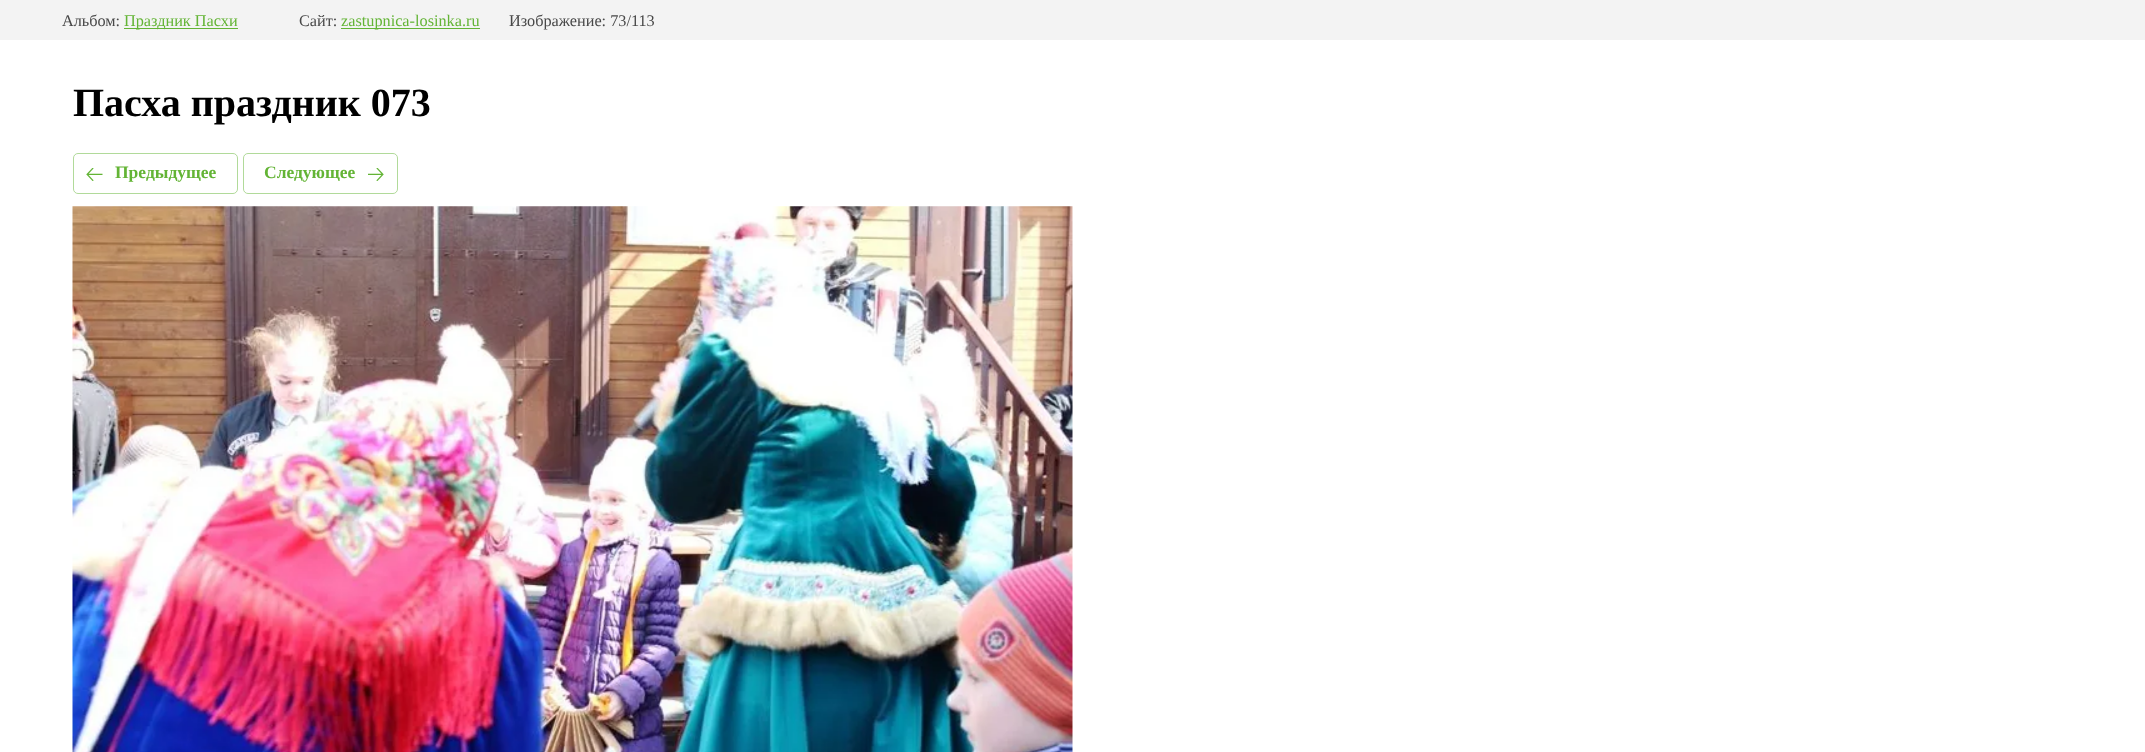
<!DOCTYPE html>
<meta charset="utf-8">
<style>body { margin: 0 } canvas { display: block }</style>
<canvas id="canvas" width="2145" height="752"></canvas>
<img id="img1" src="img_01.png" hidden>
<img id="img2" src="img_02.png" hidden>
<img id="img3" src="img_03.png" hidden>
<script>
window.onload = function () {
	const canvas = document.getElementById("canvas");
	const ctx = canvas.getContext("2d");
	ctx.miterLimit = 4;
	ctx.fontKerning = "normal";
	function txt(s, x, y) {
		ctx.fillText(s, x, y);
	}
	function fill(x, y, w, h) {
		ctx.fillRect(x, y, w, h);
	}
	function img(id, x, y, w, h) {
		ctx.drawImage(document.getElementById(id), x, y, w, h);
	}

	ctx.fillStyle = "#FFFFFF";
	fill(0, 0, 2145, 752);
	ctx.fillStyle = "#F3F3F3";
	fill(0, 0, 2145, 40);
	ctx.fillStyle = "#63B435";
	fill(124, 28, 114, 1);
	fill(341, 28, 139, 1);
	ctx.beginPath();
	ctx.roundRect(73.5, 153.5, 164, 40, 4.5);
	ctx.strokeStyle = "#B1DA9A";
	ctx.stroke();
	img("img1", 86, 168, 17, 13);
	ctx.beginPath();
	ctx.roundRect(243.5, 153.5, 154, 40, 4.5);
	ctx.stroke();
	img("img2", 368, 168, 16, 13);
	img("img3", 72, 206, 1001, 546);
	ctx.font = "16.25px Liberation Serif";
	ctx.fillStyle = "#484848";
	txt("Альбом:", 62, 26);
	ctx.fillStyle = "#63B435";
	txt("Праздник Пасхи", 124, 26);
	ctx.fillStyle = "#484848";
	txt("Сайт:", 299, 26);
	ctx.fillStyle = "#63B435";
	txt("zastupnica-losinka.ru", 341, 26);
	ctx.fillStyle = "#484848";
	txt("Изображение: 73/113", 509, 26);
	ctx.font = "bold 40px Liberation Serif";
	ctx.fillStyle = "#000000";
	txt("Пасха праздник 073", 73, 116);
	ctx.font = "bold 17.5px Liberation Serif";
	ctx.fillStyle = "#63B435";
	txt("Предыдущее", 115, 178);
	txt("Следующее", 264, 178);
};
</script>
